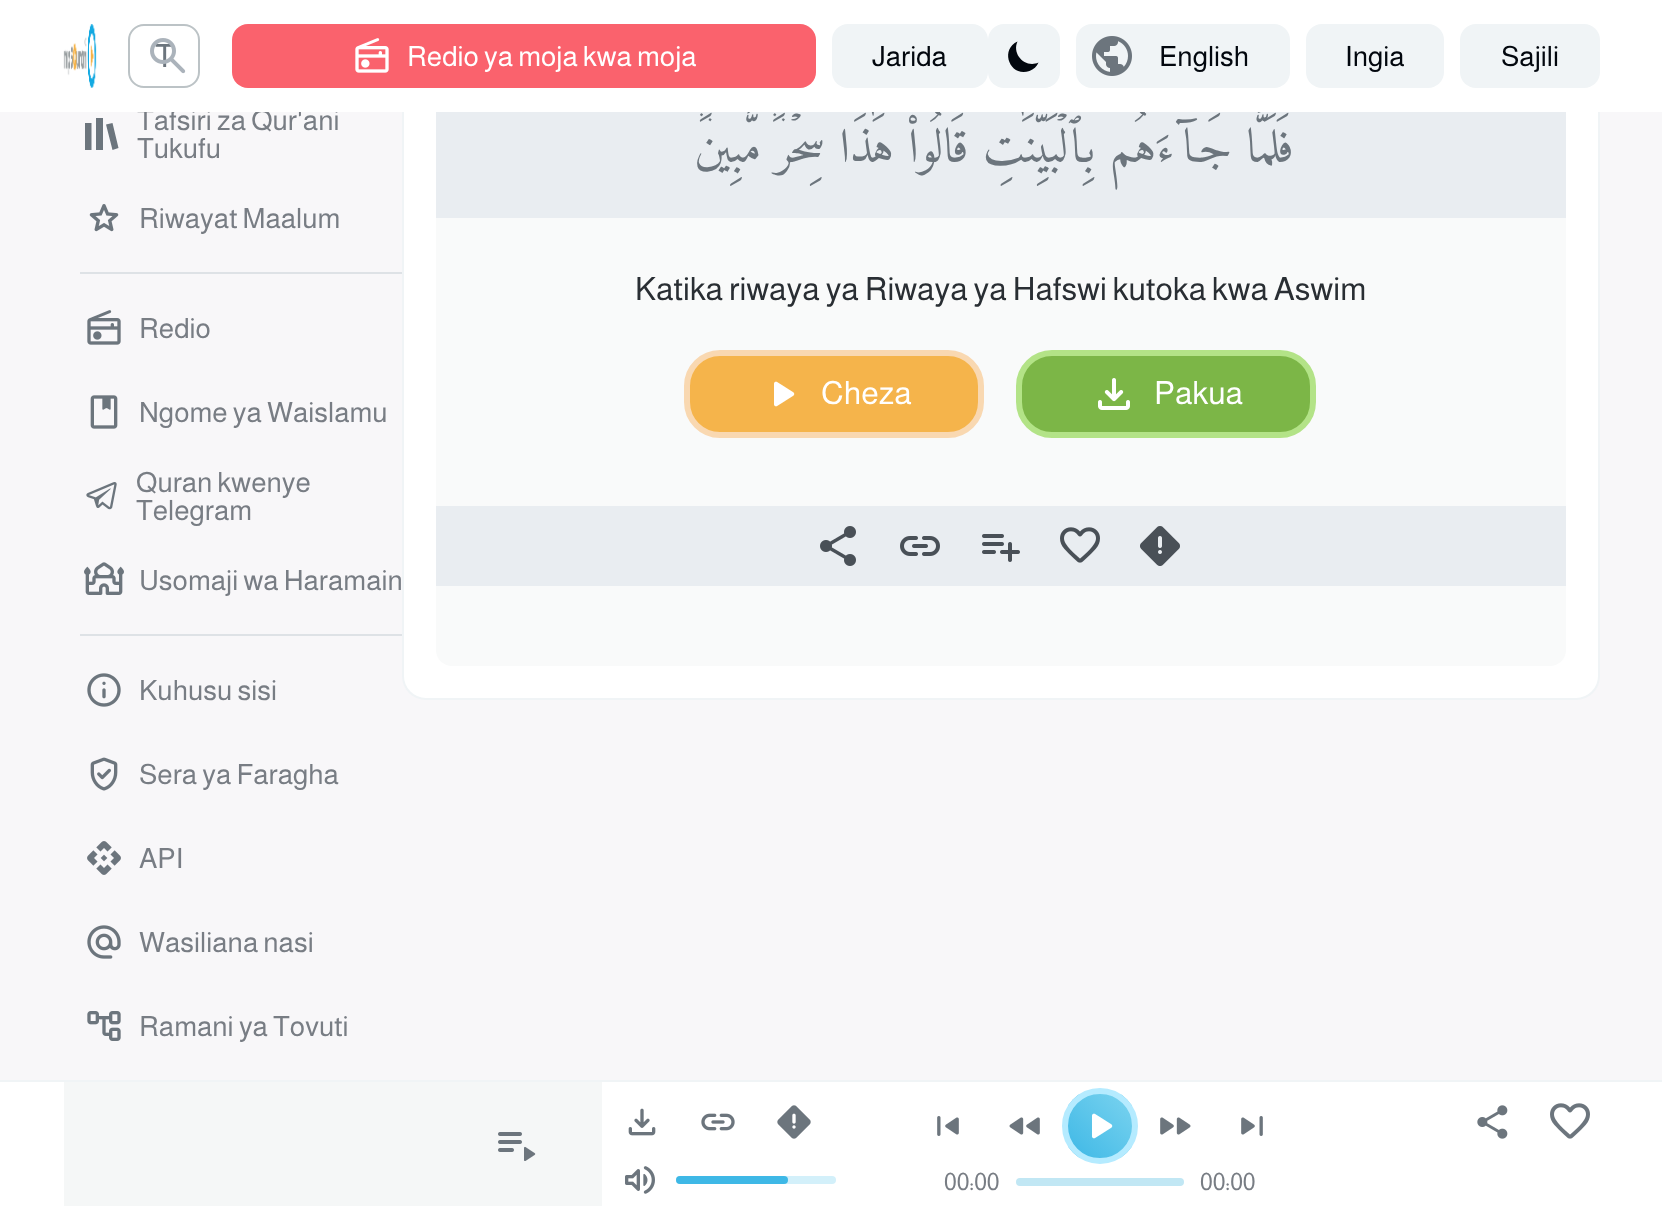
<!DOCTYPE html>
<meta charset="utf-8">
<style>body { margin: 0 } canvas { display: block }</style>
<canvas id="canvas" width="1662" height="1206"></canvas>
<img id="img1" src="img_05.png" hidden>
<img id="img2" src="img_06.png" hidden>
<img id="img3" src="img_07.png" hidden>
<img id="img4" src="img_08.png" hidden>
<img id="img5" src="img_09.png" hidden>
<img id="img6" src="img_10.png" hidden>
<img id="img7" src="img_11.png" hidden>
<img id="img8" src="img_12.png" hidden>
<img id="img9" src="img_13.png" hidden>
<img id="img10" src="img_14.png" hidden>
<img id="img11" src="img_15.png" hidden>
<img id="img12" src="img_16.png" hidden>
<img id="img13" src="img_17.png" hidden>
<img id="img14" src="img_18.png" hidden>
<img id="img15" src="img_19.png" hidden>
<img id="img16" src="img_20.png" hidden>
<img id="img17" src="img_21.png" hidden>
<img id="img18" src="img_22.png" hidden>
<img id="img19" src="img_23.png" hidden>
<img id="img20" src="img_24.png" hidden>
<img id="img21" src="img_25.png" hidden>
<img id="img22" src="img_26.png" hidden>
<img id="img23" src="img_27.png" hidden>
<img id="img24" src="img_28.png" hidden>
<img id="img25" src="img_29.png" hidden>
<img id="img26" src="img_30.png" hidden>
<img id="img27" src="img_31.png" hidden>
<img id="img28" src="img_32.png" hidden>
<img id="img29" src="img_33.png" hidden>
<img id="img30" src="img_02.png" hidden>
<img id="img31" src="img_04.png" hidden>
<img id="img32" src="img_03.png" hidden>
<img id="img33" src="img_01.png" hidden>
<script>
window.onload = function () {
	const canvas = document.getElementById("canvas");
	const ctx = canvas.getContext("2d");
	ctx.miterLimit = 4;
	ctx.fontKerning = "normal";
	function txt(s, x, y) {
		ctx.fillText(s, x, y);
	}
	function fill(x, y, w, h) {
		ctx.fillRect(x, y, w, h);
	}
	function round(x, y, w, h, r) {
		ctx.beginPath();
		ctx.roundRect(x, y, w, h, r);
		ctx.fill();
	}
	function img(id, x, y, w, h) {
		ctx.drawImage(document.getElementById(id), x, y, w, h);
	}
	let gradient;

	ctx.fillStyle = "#F8F7F9";
	fill(0, 0, 1662, 1206);
	ctx.fillStyle = "#6C757D";
	ctx.beginPath();
	ctx.moveTo(96, 118);
	ctx.lineTo(103, 118);
	ctx.lineTo(103, 150);
	ctx.lineTo(96, 150);
	ctx.closePath();
	ctx.moveTo(85, 123);
	ctx.lineTo(91.5, 123);
	ctx.lineTo(91.5, 150);
	ctx.lineTo(85, 150);
	ctx.closePath();
	ctx.moveTo(112.5, 123);
	ctx.lineTo(106, 124.5);
	ctx.lineTo(112.5, 150);
	ctx.lineTo(118.5, 148);
	ctx.closePath();
	ctx.fill();
	img("img1", 89, 204, 30, 28);
	ctx.fillStyle = "#DEE2E6";
	fill(80, 272, 322, 2);
	img("img2", 87, 310, 34, 35);
	img("img3", 90, 395, 28, 34);
	img("img4", 86, 482, 31, 28);
	img("img5", 84, 562, 40, 33);
	fill(80, 634, 322, 2);
	img("img6", 87, 673, 34, 34);
	img("img7", 90, 757, 28, 34);
	img("img8", 87, 841, 34, 34);
	img("img9", 87, 925, 34, 34);
	img("img10", 87, 1011, 34, 30);
	ctx.fillStyle = "#FFFFFF";
	ctx.beginPath();
	ctx.roundRect(403, -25, 1196, 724, 23);
	ctx.fill();
	ctx.strokeStyle = "#F0F4F6";
	ctx.lineWidth = 2;
	ctx.stroke();
	ctx.fillStyle = "#F9FAFA";
	round(436, -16, 1130, 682, 16);
	ctx.fillStyle = "#E9EDF1";
	fill(436, 112, 1130, 106);
	ctx.fillStyle = "#F5B44B";
	ctx.beginPath();
	ctx.roundRect(687, 353, 294, 82, 33);
	ctx.fill();
	ctx.strokeStyle = "#F9D8B1";
	ctx.lineWidth = 6;
	ctx.stroke();
	img("img11", 774, 381, 21, 26);
	ctx.fillStyle = "#7CB647";
	ctx.beginPath();
	ctx.roundRect(1019, 353, 294, 82, 33);
	ctx.fill();
	ctx.strokeStyle = "#B3E387";
	ctx.stroke();
	img("img12", 1098, 378, 32, 32);
	ctx.fillStyle = "#E9EDF1";
	fill(436, 506, 1130, 80);
	img("img13", 820, 526, 36, 40);
	img("img14", 900, 536, 40, 20);
	img("img15", 982, 534, 38, 28);
	img("img16", 1060, 527, 40, 36);
	img("img17", 1140, 526, 40, 40);
	ctx.fillStyle = "#FFFFFF";
	fill(0, 1082, 1662, 124);
	ctx.fillStyle = "#F0F4F6";
	fill(0, 1080, 1662, 2);
	ctx.fillStyle = "#F5F7F7";
	fill(64, 1082, 538, 124);
	img("img18", 498, 1132, 38, 29);
	img("img19", 628, 1108, 28, 28);
	img("img20", 701, 1113, 34, 18);
	img("img21", 777, 1105, 34, 34);
	img("img22", 625, 1166, 30, 28);
	ctx.fillStyle = "#D3F0FA";
	round(676, 1176, 160, 8, 4);
	ctx.fillStyle = "#3EB8E6";
	round(676, 1176, 112, 8, 4);
	img("img23", 1477, 1105, 31, 34);
	img("img24", 1550, 1103, 40, 36);
	img("img25", 937, 1116, 22, 20);
	img("img26", 1009, 1117, 31, 18);
	ctx.save();
	ctx.beginPath();
	ctx.roundRect(1062, 1088, 76, 76, 38);
	ctx.clip();
	gradient = ctx.createLinearGradient(1068, 1158, 1132, 1094);
	gradient.addColorStop(0, "#3EB8E6");
	gradient.addColorStop(1, "#7AD3EF");
	ctx.fillStyle = gradient;
	fill(1068, 1094, 64, 64);
	ctx.restore();
	ctx.beginPath();
	ctx.arc(1100, 1126, 35, 0, Math.PI * 2);
	ctx.strokeStyle = "#B5EBFF";
	ctx.stroke();
	img("img27", 1092, 1113, 21, 26);
	img("img28", 1160, 1117, 31, 18);
	img("img29", 1241, 1116, 22, 20);
	ctx.fillStyle = "#C1E7F4";
	round(1016, 1178, 168, 8, 4);
	ctx.font = "28px Almarai";
	ctx.fillStyle = "#787D84";
	txt("Tafsiri za Qur'ani", 137, 130);
	txt("Tukufu", 137, 158);
	txt("Riwayat Maalum", 139, 228);
	txt("Redio", 139, 338);
	txt("Ngome ya Waislamu", 139, 422);
	txt("Quran kwenye", 136, 492);
	txt("Telegram", 136, 520);
	txt("Usomaji wa Haramain", 139, 590);
	txt("Kuhusu sisi", 139, 700);
	txt("Sera ya Faragha", 139, 784);
	txt("API", 139, 868);
	txt("Wasiliana nasi", 139, 952);
	txt("Ramani ya Tovuti", 139, 1036);
	ctx.direction = "rtl";
	ctx.font = "48px Amiri";
	ctx.fillStyle = "#6C757D";
	txt("فَلَمَّا جَآءَهُم بِٱلۡبَيِّنَٰتِ قَالُواْ هَٰذَا سِحۡرٞ مُّبِينٞ", 1294, 162);
	ctx.fillStyle = "#FFFFFF";
	fill(0, 0, 1662, 112);
	ctx.beginPath();
	ctx.roundRect(129, 25, 70, 62, 15);
	ctx.strokeStyle = "#BCC3C6";
	ctx.lineWidth = 2;
	ctx.stroke();
	ctx.direction = "ltr";
	ctx.font = "32px Almarai";
	ctx.fillStyle = "#6C757D";
	txt("T", 155, 67);
	img("img30", 150, 38, 36, 36);
	ctx.fillStyle = "#F0F4F6";
	round(1076, 24, 214, 64, 16);
	img("img31", 1092, 36, 40, 40);
	round(988, 24, 72, 64, 16);
	ctx.fillStyle = "#02070E";
	ctx.beginPath();
	ctx.moveTo(1038.5, 62.5);
	ctx.bezierCurveTo(1025.5, 68.5, 1011.5, 54.5, 1017.5, 41.5);
	ctx.bezierCurveTo(999, 50, 1010.5, 78, 1029.5, 71);
	ctx.bezierCurveTo(1033.5, 69.5, 1037, 66.5, 1038.5, 62.5);
	ctx.closePath();
	ctx.fill();
	ctx.fillStyle = "#FA626D";
	round(232, 24, 584, 64, 16);
	img("img32", 355, 38, 34, 35);
	ctx.fillStyle = "#F0F4F6";
	round(1460, 24, 140, 64, 16);
	ctx.font = "28px Almarai";
	ctx.fillStyle = "#02070E";
	txt("Sajili", 1501, 66);
	ctx.fillStyle = "#F0F4F6";
	round(1306, 24, 138, 64, 16);
	ctx.fillStyle = "#02070E";
	txt("Ingia", 1345, 66);
	txt("English", 1159, 66);
	ctx.fillStyle = "#F0F4F6";
	round(832, 24, 156, 64, 16);
	ctx.fillStyle = "#02070E";
	txt("Jarida", 872, 66);
	ctx.fillStyle = "#FFFFFF";
	txt("Redio ya moja kwa moja", 407, 66);
	img("img33", 63, 24, 34, 64);
	ctx.font = "32px Almarai";
	ctx.fillStyle = "#292E33";
	txt("Katika riwaya ya Riwaya ya Hafswi kutoka kwa Aswim", 635, 300);
	ctx.fillStyle = "#FFFFFF";
	txt("Cheza", 821, 404);
	txt("Pakua", 1154, 404);
	ctx.font = "24px Almarai";
	ctx.fillStyle = "#787D84";
	txt("00:00", 944, 1190);
	txt("00:00", 1200, 1190);
};
</script>
